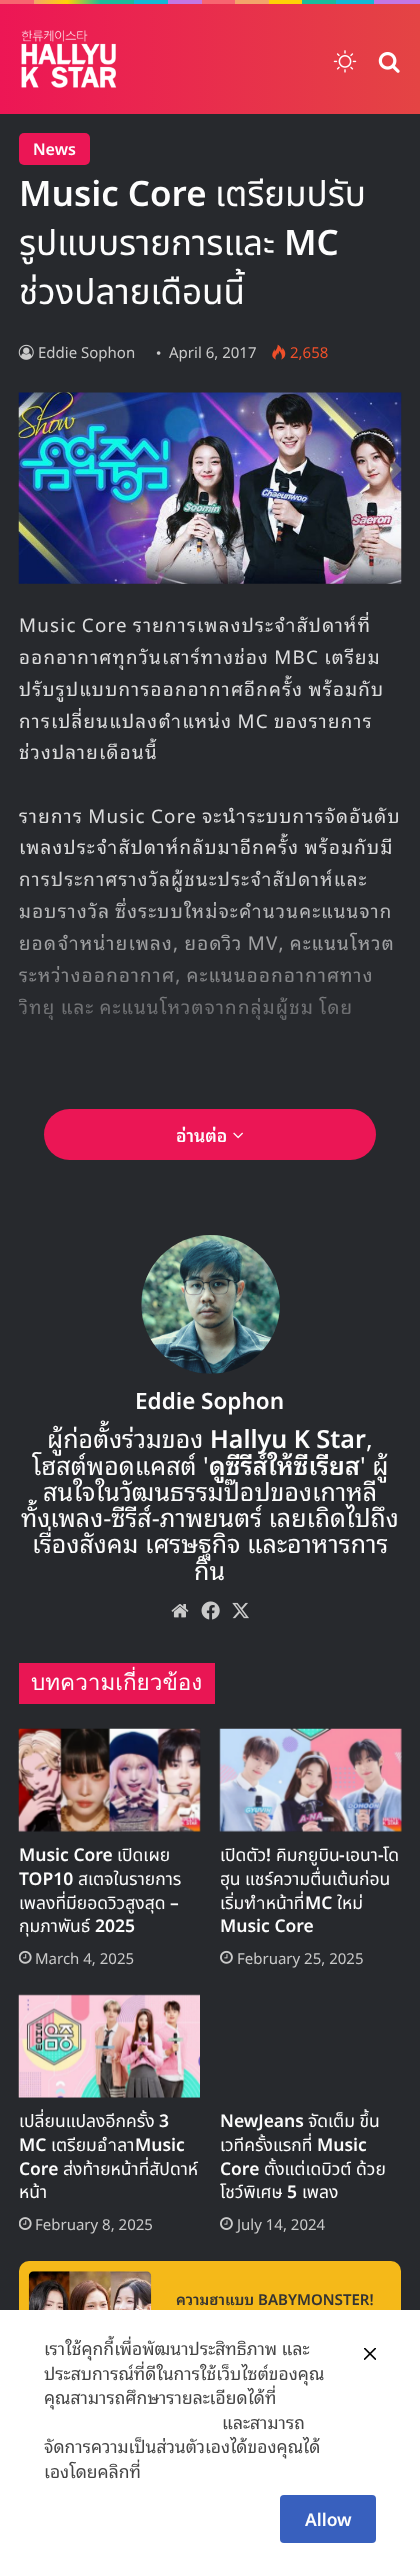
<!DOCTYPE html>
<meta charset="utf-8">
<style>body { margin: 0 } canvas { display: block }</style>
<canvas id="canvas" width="420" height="2567"></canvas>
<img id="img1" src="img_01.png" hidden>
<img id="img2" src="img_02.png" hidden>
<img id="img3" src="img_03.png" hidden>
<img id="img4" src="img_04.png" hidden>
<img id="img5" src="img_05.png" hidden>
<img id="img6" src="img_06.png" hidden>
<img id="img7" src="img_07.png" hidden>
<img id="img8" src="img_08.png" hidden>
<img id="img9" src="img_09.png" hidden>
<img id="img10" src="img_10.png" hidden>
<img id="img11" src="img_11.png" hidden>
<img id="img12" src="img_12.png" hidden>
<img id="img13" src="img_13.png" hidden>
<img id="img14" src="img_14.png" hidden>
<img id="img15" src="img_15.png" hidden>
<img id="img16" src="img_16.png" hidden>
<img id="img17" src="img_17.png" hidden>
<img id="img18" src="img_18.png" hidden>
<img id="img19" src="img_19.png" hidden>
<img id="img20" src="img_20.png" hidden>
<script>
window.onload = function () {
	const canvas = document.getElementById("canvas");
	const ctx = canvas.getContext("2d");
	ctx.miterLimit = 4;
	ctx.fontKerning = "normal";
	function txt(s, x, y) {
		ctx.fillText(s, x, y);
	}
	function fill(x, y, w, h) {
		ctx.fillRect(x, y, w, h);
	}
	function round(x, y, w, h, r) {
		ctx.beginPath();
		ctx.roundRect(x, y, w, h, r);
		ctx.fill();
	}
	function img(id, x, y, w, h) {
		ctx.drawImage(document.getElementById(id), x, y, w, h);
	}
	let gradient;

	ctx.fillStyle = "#27292D";
	fill(0, 0, 420, 2567);
	gradient = ctx.createLinearGradient(0, 1.9, 420, 1.9);
	gradient.addColorStop(0, "#F76570");
	gradient.addColorStop(0.08, "#F76570");
	gradient.addColorStop(0.08, "#F3A46B");
	gradient.addColorStop(0.16, "#FFD205");
	gradient.addColorStop(0.24, "#1BBC9B");
	gradient.addColorStop(0.32, "#1BBC9B");
	gradient.addColorStop(0.32, "#14B9D5");
	gradient.addColorStop(0.4, "#14B9D5");
	gradient.addColorStop(0.4, "#C377E4");
	gradient.addColorStop(0.48, "#C377E4");
	gradient.addColorStop(0.48, "#F76570");
	gradient.addColorStop(0.56, "#F76570");
	gradient.addColorStop(0.56, "#F3A46B");
	gradient.addColorStop(0.64, "#F3A46B");
	gradient.addColorStop(0.64, "#FFD205");
	gradient.addColorStop(0.72, "#FFD205");
	gradient.addColorStop(0.72, "#1BBC9B");
	gradient.addColorStop(0.8, "#1BBC9B");
	gradient.addColorStop(0.8, "#14B9D5");
	gradient.addColorStop(0.89, "#14B9D5");
	gradient.addColorStop(0.89, "#C377E4");
	gradient.addColorStop(1, "#C377E4");
	ctx.fillStyle = gradient;
	fill(0, 0, 420, 4);
	gradient = ctx.createLinearGradient(0, 59, 420, 59);
	gradient.addColorStop(0, "#ED1655");
	gradient.addColorStop(1, "#E44444");
	ctx.fillStyle = gradient;
	fill(0, 4, 420, 110);
	img("img1", 21, 30, 96, 58);
	img("img2", 333, 50, 24, 23);
	img("img3", 378, 52, 22, 21);
	ctx.fillStyle = "#EB1655";
	round(19, 133, 71, 32, 5);
	img("img4", 18, 344, 16, 16);
	img("img5", 272, 344, 14, 16);
	img("img6", 18, 392, 384, 192);
	round(44, 1109, 332, 51, 25.5);
	img("img7", 233, 1132, 10, 7);
	img("img8", 141, 1235, 139, 139);
	img("img9", 171, 1604, 18, 14);
	img("img10", 201, 1601, 19, 19);
	img("img11", 232, 1602, 17, 17);
	ctx.fillStyle = "#E91654";
	fill(19, 1663, 196, 41);
	img("img12", 18, 1728, 183, 104);
	img("img13", 19, 1950, 13, 14);
	img("img14", 219, 1728, 183, 104);
	img("img15", 220, 1950, 13, 14);
	img("img16", 18, 1994, 182, 104);
	img("img17", 19, 2217, 13, 13);
	img("img18", 220, 2217, 13, 13);
	ctx.fillStyle = "#F5B919";
	round(19, 2261, 382, 118, 10);
	img("img19", 28, 2271, 124, 39);
	ctx.fillStyle = "#FFFFFF";
	fill(0, 2310, 420, 257);
	img("img20", 364, 2348, 12, 12);
	ctx.fillStyle = "#3860BE";
	round(280, 2495, 96, 48, 4);
	ctx.font = "600 16px Noto Sans Thai Looped";
	ctx.fillStyle = "#FDFDFD";
	txt("News", 33, 155);
	ctx.font = "600 35px Noto Sans Thai";
	txt("Music Core", 19, 206);
	ctx.font = "35px Noto Sans Thai";
	txt("เตรียมปรับ", 215, 206);
	txt("รูปแบบรายการและ", 19, 255);
	ctx.font = "600 35px Noto Sans Thai";
	txt("MC", 284, 255);
	ctx.font = "35px Noto Sans Thai";
	txt("ช่วงปลายเดือนนี้", 19, 304);
	ctx.font = "15px Noto Sans Thai Looped";
	ctx.fillStyle = "#CACACA";
	txt("Eddie Sophon", 38, 358);
	ctx.font = "15px Liberation Serif";
	txt("•", 156, 358);
	ctx.font = "15px Noto Sans Thai Looped";
	txt("April 6, 2017", 169, 358);
	ctx.fillStyle = "#F1502A";
	txt("2,658", 290, 358);
	ctx.letterSpacing = "1.25px";
	ctx.wordSpacing = "-1px";
	ctx.font = "18.75px Noto Sans Thai Looped";
	ctx.fillStyle = "#FDFDFD";
	txt("Music Core รายการเพลงประจำสัปดาห์ที่", 19, 632);
	txt("ออกอากาศทุกวันเสาร์ทางช่อง MBC เตรียม", 19, 664);
	txt("ปรับรูปแบบการออกอากาศอีกครั้ง พร้อมกับ", 19, 696);
	txt("การเปลี่ยนแปลงตำแหน่ง MC ของรายการ", 19, 728);
	ctx.save();
	ctx.beginPath();
	ctx.rect(19, 609, 382, 500);
	ctx.clip();
	ctx.wordSpacing = "0px";
	txt("ช่วงปลายเดือนนี้", 19, 759);
	ctx.restore();
	txt("รายการ Music Core จะนำระบบการจัดอันดับ", 19, 823);
	txt("เพลงประจำสัปดาห์กลับมาอีกครั้ง พร้อมกับมี", 19, 854);
	ctx.wordSpacing = "0px";
	txt("การประกาศรางวัลผู้ชนะประจำสัปดาห์และ", 19, 886);
	ctx.wordSpacing = "-1px";
	txt("มอบรางวัล ซึ่งระบบใหม่จะคำนวนคะแนนจาก", 19, 918);
	txt("ยอดจำหน่ายเพลง, ยอดวิว MV, คะแนนโหวต", 19, 950);
	txt("ระหว่างออกอากาศ, คะแนนออกอากาศทาง", 19, 982);
	ctx.save();
	ctx.beginPath();
	ctx.rect(19, 609, 382, 500);
	ctx.clip();
	txt("วิทยุ และ คะแนนโหวตจากกลุ่มผู้ชม โดย", 19, 1014);
	ctx.restore();
	gradient = ctx.createLinearGradient(210, 609, 210, 1109);
	gradient.addColorStop(0.5, "rgba(39, 41, 45, 0.15)");
	gradient.addColorStop(1, "#27292D");
	ctx.fillStyle = gradient;
	fill(19, 612, 380, 408);
	ctx.letterSpacing = "0px";
	ctx.wordSpacing = "0px";
	ctx.font = "600 17.5px Noto Sans Thai Looped";
	ctx.fillStyle = "#FDFDFD";
	txt("อ่านต่อ", 176, 1142);
	ctx.font = "600 22.5px Noto Sans Thai";
	txt("Eddie Sophon", 135, 1409);
	ctx.font = "25px Noto Sans Thai Looped";
	txt("ผู้ก่อตั้งร่วมของ", 47, 1448);
	ctx.font = "600 25px Noto Sans Thai Looped";
	txt("Hallyu K Star", 210, 1448);
	ctx.font = "25px Noto Sans Thai Looped";
	txt(",", 366, 1448);
	txt("โฮสต์พอดแคสต์ '", 32, 1475);
	ctx.font = "600 25px Noto Sans Thai Looped";
	txt("ดูซีรีส์ให้ซีเรียส", 209, 1475);
	ctx.font = "25px Noto Sans Thai Looped";
	txt("' ผู้", 360, 1475);
	txt("สนใจในวัฒนธรรมป๊อปของเกาหลี", 43, 1501);
	ctx.save();
	ctx.beginPath();
	ctx.roundRect(19, 1235, 382, 390, 2.5);
	ctx.clip();
	txt("ทั้งเพลง-ซีรีส์-ภาพยนตร์ เลยเถิดไปถึง", 21, 1527);
	ctx.restore();
	txt("เรื่องสังคม เศรษฐกิจ และอาหารการ", 32, 1553);
	txt("กิน", 194, 1580);
	ctx.font = "22.5px Loma";
	txt("บทความเกี่ยวข้อง", 31, 1690);
	ctx.font = "600 17.5px Noto Sans Thai";
	txt("Music Core", 19, 1861);
	ctx.font = "17.5px Noto Sans Thai";
	txt("เปิดเผย", 117, 1861);
	ctx.font = "600 17.5px Noto Sans Thai";
	txt("TOP10", 19, 1885);
	ctx.font = "17.5px Noto Sans Thai";
	txt("สเตจในรายการ", 78, 1885);
	txt("เพลงที่มียอดวิวสูงสุด", 19, 1909);
	ctx.font = "600 17.5px Noto Sans Thai";
	txt("–", 170, 1909);
	ctx.font = "17.5px Noto Sans Thai";
	txt("กุมภาพันธ์", 19, 1932);
	ctx.font = "600 17.5px Noto Sans Thai";
	txt("2025", 95, 1932);
	ctx.font = "15px Noto Sans Thai Looped";
	ctx.fillStyle = "#CACACA";
	txt("March 4, 2025", 35, 1964);
	ctx.font = "17.5px Noto Sans Thai";
	ctx.fillStyle = "#FDFDFD";
	txt("เปิดตัว", 220, 1861);
	ctx.font = "600 17.5px Noto Sans Thai";
	txt("!", 266, 1861);
	ctx.font = "17.5px Noto Sans Thai";
	txt("โด", 383, 1861);
	txt("คิมกยูบิน", 276, 1861);
	ctx.font = "600 17.5px Noto Sans Thai";
	txt("-", 339, 1861);
	ctx.font = "17.5px Noto Sans Thai";
	txt("เอนา", 345, 1861);
	ctx.font = "600 17.5px Noto Sans Thai";
	txt("-", 378, 1861);
	ctx.font = "17.5px Noto Sans Thai";
	txt("ฮุน แชร์ความตื่นเต้นก่อน", 220, 1885);
	txt("เริ่มทำหน้าที่", 220, 1909);
	ctx.font = "600 17.5px Noto Sans Thai";
	txt("MC", 305, 1909);
	ctx.font = "17.5px Noto Sans Thai";
	txt("ใหม่", 337, 1909);
	ctx.font = "600 17.5px Noto Sans Thai";
	txt("Music Core", 220, 1932);
	ctx.font = "15px Noto Sans Thai Looped";
	ctx.fillStyle = "#CACACA";
	txt("February 25, 2025", 237, 1964);
	ctx.font = "17.5px Noto Sans Thai";
	ctx.fillStyle = "#FDFDFD";
	txt("เปลี่ยนแปลงอีกครั้ง", 19, 2127);
	ctx.font = "600 17.5px Noto Sans Thai";
	txt("3", 159, 2127);
	txt("MC", 19, 2151);
	ctx.font = "17.5px Noto Sans Thai";
	txt("เตรียมอำลา", 51, 2151);
	ctx.font = "600 17.5px Noto Sans Thai";
	txt("Music", 135, 2151);
	txt("Core", 19, 2175);
	ctx.font = "17.5px Noto Sans Thai";
	txt("ส่งท้ายหน้าที่สัปดาห์", 63, 2175);
	txt("หน้า", 19, 2198);
	ctx.font = "15px Noto Sans Thai Looped";
	ctx.fillStyle = "#CACACA";
	txt("February 8, 2025", 35, 2230);
	ctx.font = "600 17.5px Noto Sans Thai";
	ctx.fillStyle = "#FDFDFD";
	txt("NewJeans", 220, 2127);
	ctx.font = "17.5px Noto Sans Thai";
	txt("จัดเต็ม ขึ้น", 308, 2127);
	txt("เวทีครั้งแรกที่", 220, 2151);
	ctx.font = "600 17.5px Noto Sans Thai";
	txt("Music", 317, 2151);
	txt("Core", 220, 2175);
	ctx.font = "17.5px Noto Sans Thai";
	txt("ตั้งแต่เดบิวต์ ด้วย", 264, 2175);
	txt("โชว์พิเศษ", 220, 2198);
	ctx.font = "600 17.5px Noto Sans Thai";
	txt("5", 287, 2198);
	ctx.font = "17.5px Noto Sans Thai";
	txt("เพลง", 302, 2198);
	ctx.font = "15px Noto Sans Thai Looped";
	ctx.fillStyle = "#CACACA";
	txt("July 14, 2024", 237, 2230);
	ctx.font = "600 15px Noto Sans Thai Looped";
	ctx.fillStyle = "#333333";
	txt("ความฮาแบบ BABYMONSTER!", 176, 2305);
	ctx.font = "17.5px Noto Sans Thai Looped";
	ctx.fillStyle = "#444444";
	txt("เราใช้คุกกี้เพื่อพัฒนาประสิทธิภาพ และ", 44, 2355);
	txt("ประสบการณ์ที่ดีในการใช้เว็บไซต์ของคุณ", 44, 2380);
	txt("คุณสามารถศึกษารายละเอียดได้ที่", 44, 2404);
	txt("และสามารถ", 222, 2429);
	txt("จัดการความเป็นส่วนตัวเองได้ของคุณได้", 44, 2453);
	txt("เองโดยคลิกที่", 44, 2478);
	ctx.font = "600 17.5px Noto Sans Thai Looped";
	ctx.fillStyle = "#FDFDFD";
	txt("Allow", 305, 2526);
};
</script>
